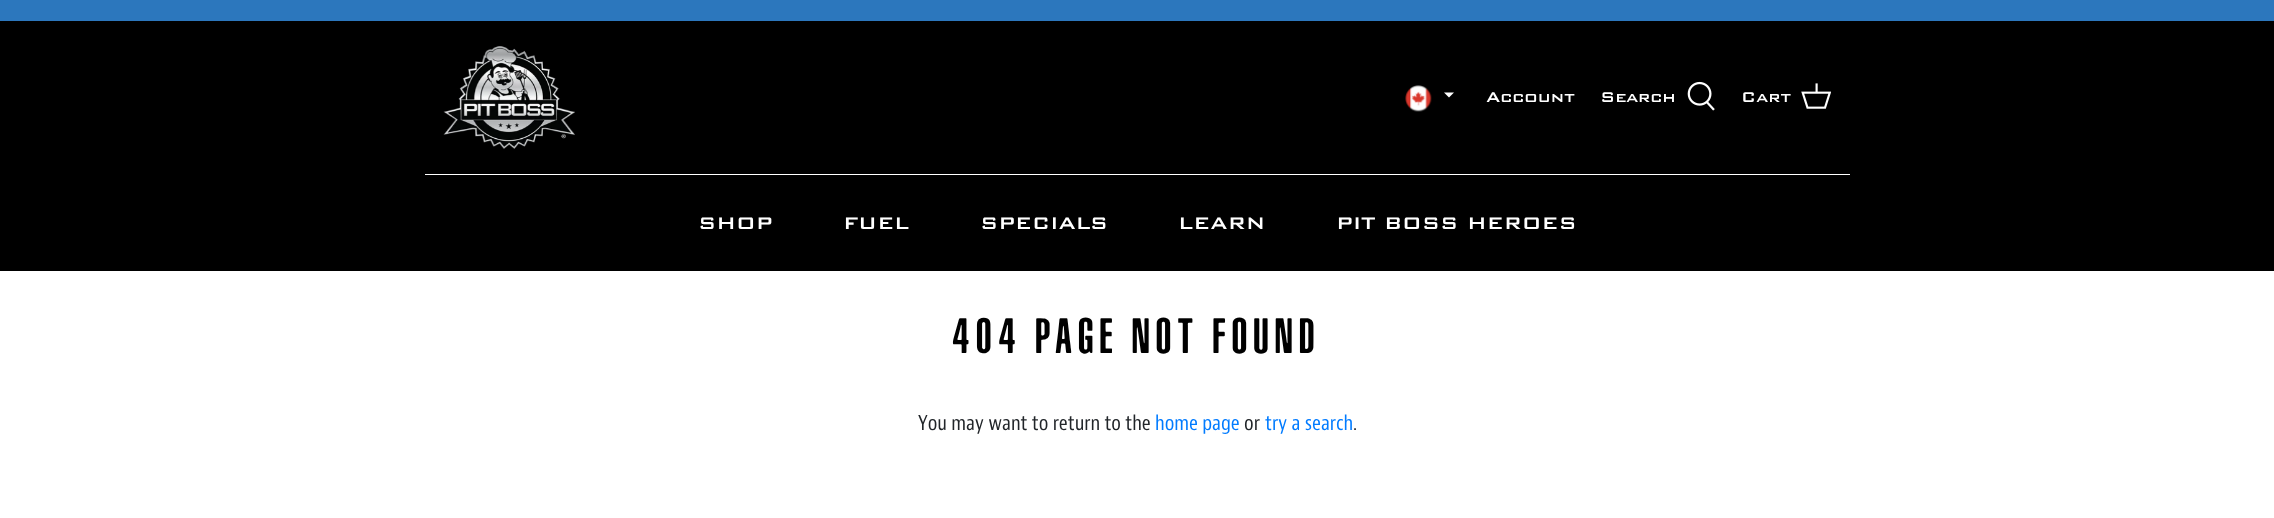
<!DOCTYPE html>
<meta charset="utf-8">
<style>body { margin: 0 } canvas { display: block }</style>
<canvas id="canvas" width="2274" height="518"></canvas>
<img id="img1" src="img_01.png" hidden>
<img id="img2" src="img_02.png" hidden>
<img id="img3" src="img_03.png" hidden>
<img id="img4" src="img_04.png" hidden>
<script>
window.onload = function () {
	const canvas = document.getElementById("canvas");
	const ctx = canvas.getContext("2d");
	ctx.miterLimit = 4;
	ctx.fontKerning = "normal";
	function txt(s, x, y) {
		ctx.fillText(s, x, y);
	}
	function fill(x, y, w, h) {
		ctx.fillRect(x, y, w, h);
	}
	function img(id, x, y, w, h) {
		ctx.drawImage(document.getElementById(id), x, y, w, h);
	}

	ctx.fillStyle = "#FFFFFF";
	fill(0, 0, 2274, 518);
	ctx.fillStyle = "#2C77BD";
	fill(0, 0, 2274, 21);
	ctx.fillStyle = "#000000";
	fill(0, 21, 2274, 250);
	ctx.fillStyle = "#FFFFFF";
	fill(425, 174, 1425, 1);
	img("img1", 443, 46, 132, 103);
	img("img2", 1405, 85, 27, 27);
	ctx.beginPath();
	ctx.moveTo(1444, 92.5);
	ctx.lineTo(1454, 92.5);
	ctx.lineTo(1449, 97.5);
	ctx.closePath();
	ctx.fill();
	img("img3", 1687, 81, 28, 30);
	img("img4", 1801, 83, 30, 26);
	ctx.font = "500 18.75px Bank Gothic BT";
	txt("Account", 1486, 102);
	txt("Search", 1600, 102);
	txt("Cart", 1741, 102);
	ctx.font = "500 22.5px Bank Gothic BT";
	txt("SHOP", 698, 229);
	txt("FUEL", 843, 229);
	txt("SPECIALS", 980, 229);
	txt("LEARN", 1178, 229);
	txt("PIT BOSS HEROES", 1336, 229);
	ctx.letterSpacing = "6.25px";
	ctx.font = "50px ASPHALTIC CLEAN";
	ctx.fillStyle = "#000000";
	txt("404 PAGE NOT FOUND", 953, 353);
	ctx.letterSpacing = "0px";
	ctx.font = "20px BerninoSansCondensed";
	ctx.fillStyle = "#212529";
	txt("You may want to return to the", 918, 430);
	ctx.fillStyle = "#007BFF";
	txt("home page", 1155, 430);
	ctx.fillStyle = "#212529";
	txt("or", 1244, 430);
	ctx.fillStyle = "#007BFF";
	txt("try a search", 1265, 430);
	ctx.fillStyle = "#212529";
	txt(".", 1353, 430);
};
</script>
